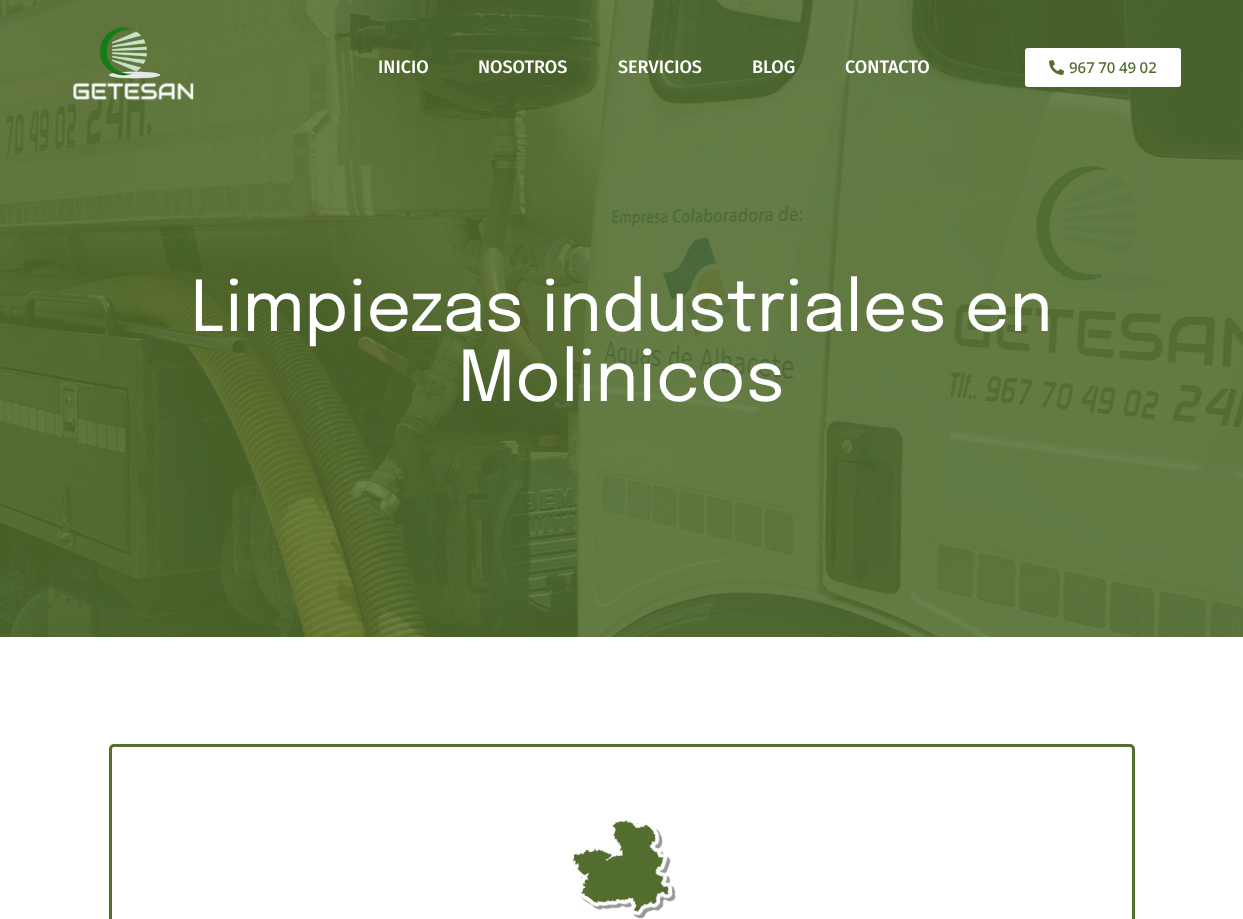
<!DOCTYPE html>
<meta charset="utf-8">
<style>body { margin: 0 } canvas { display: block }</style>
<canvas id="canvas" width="1243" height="919"></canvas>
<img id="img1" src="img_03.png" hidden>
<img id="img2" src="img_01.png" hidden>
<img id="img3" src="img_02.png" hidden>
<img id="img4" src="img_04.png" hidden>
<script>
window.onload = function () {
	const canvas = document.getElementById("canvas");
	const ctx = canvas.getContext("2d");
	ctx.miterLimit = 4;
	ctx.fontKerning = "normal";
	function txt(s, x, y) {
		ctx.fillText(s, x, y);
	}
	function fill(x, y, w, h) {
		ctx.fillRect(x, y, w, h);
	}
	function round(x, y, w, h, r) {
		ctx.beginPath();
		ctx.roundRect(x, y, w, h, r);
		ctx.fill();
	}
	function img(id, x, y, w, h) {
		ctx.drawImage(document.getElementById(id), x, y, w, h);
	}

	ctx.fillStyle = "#FFFFFF";
	fill(0, 0, 1243, 919);
	img("img1", 0, 0, 1243, 637);
	img("img2", 73, 27, 121, 74);
	round(1025, 48, 156, 39, 3);
	img("img3", 1049, 60, 15, 15);
	ctx.beginPath();
	ctx.roundRect(110.5, 745.5, 1023, 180, 3.5);
	ctx.strokeStyle = "#536E2E";
	ctx.lineWidth = 3;
	ctx.stroke();
	img("img4", 572, 819, 104, 100);
	ctx.font = "500 18px Fira Sans";
	txt("INICIO", 378, 73);
	txt("NOSOTROS", 478, 73);
	txt("SERVICIOS", 618, 73);
	txt("BLOG", 752, 73);
	txt("CONTACTO", 845, 73);
	ctx.font = "500 15px Noto Sans Adlam";
	ctx.fillStyle = "#536E2E";
	txt("967 70 49 02", 1069, 73);
	ctx.font = "70px Epilogue";
	ctx.fillStyle = "#FFFFFF";
	txt("Limpiezas industriales en", 191, 331);
	txt("Molinicos", 458, 401);
};
</script>
